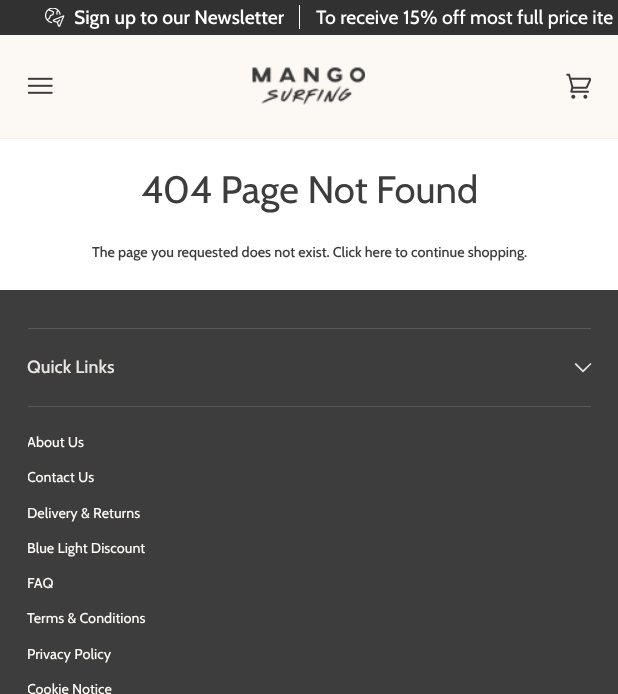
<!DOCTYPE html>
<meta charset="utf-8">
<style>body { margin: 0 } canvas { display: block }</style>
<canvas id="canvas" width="618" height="694"></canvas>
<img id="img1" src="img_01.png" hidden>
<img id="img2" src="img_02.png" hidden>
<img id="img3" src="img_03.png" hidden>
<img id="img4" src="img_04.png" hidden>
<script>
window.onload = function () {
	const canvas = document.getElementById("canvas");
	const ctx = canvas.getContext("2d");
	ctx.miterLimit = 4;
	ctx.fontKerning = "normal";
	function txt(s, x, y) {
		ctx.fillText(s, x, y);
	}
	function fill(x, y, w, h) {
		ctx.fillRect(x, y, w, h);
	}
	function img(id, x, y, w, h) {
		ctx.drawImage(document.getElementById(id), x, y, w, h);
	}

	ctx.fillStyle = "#FFFFFF";
	fill(0, 0, 618, 694);
	ctx.fillStyle = "#313131";
	fill(0, 0, 618, 35);
	img("img1", 45, 8, 20, 19);
	ctx.fillStyle = "#FFFFFF";
	fill(299, 5, 1, 24);
	ctx.fillStyle = "#FCF8F4";
	fill(0, 35, 618, 103);
	ctx.fillStyle = "#F7F1EC";
	fill(0, 138, 618, 1);
	img("img2", 28, 77, 25, 17);
	img("img3", 252, 67, 113, 38);
	img("img4", 566, 73, 25, 26);
	ctx.fillStyle = "#3D3D3D";
	fill(0, 290, 618, 404);
	ctx.fillStyle = "#5A5958";
	fill(28, 328, 563, 1);
	fill(28, 406, 563, 1);
	ctx.fillStyle = "#E9E5E2";
	ctx.beginPath();
	ctx.moveTo(583, 370);
	ctx.lineTo(590.5, 363);
	ctx.lineTo(591.5, 364);
	ctx.lineTo(583, 372.5);
	ctx.lineTo(574.5, 364);
	ctx.lineTo(576, 363);
	ctx.closePath();
	ctx.fill("evenodd");
	ctx.font = "600 19.4px Cabin";
	ctx.fillStyle = "#FFFFFF";
	txt("Sign up to our Newsletter", 74, 24);
	ctx.font = "500 19.4px Cabin";
	txt("To receive 15% off most full price ite", 316, 24);
	ctx.font = "38.25px Cabin";
	ctx.fillStyle = "#3D3D3D";
	txt("404 Page Not Found", 141, 203);
	ctx.font = "500 14.35px Cabin";
	txt("The page you requested does not exist. Click here to continue shopping.", 92, 257);
	ctx.font = "600 18px Cabin";
	ctx.fillStyle = "#E9E5E2";
	txt("Quick Links", 27, 373);
	ctx.save();
	ctx.beginPath();
	ctx.rect(28, 408, 563, 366);
	ctx.clip();
	ctx.font = "500 14.35px Cabin";
	ctx.fillStyle = "#FCF8F4";
	txt("About Us", 27, 447);
	txt("Contact Us", 27, 482);
	ctx.restore();
	ctx.font = "500 14.35px Cabin";
	ctx.fillStyle = "#FCF8F4";
	txt("Delivery & Returns", 27, 518);
	txt("Blue Light Discount", 27, 553);
	txt("FAQ", 27, 588);
	txt("Terms & Conditions", 27, 623);
	txt("Privacy Policy", 27, 659);
	ctx.save();
	ctx.beginPath();
	ctx.rect(28, 408, 563, 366);
	ctx.clip();
	txt("Cookie Notice", 27, 694);
	ctx.restore();
};
</script>
